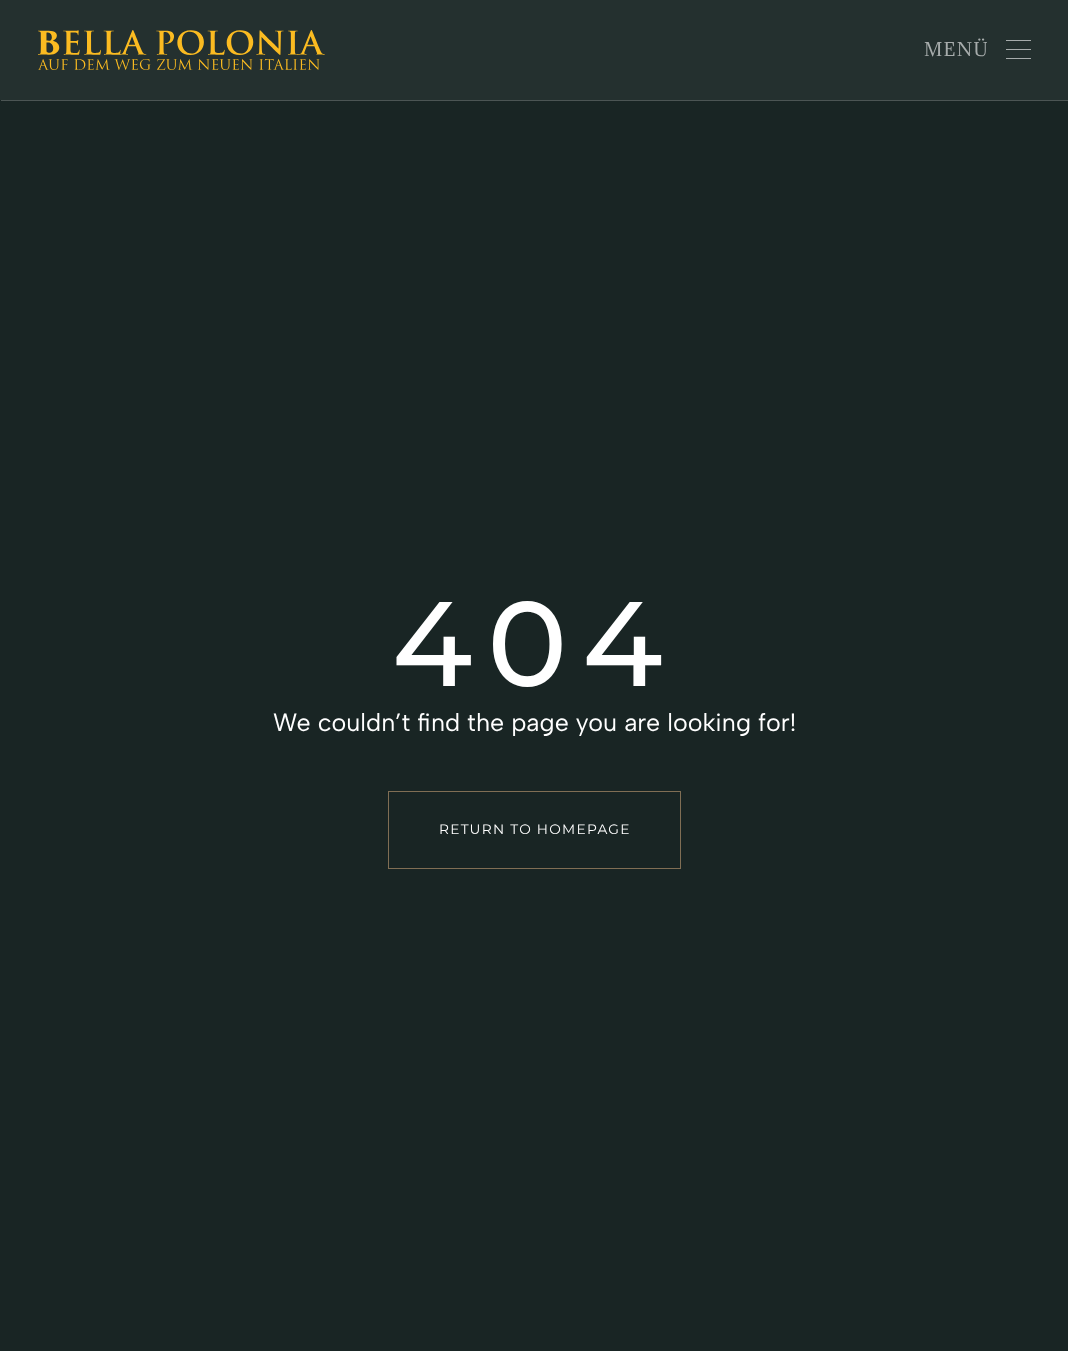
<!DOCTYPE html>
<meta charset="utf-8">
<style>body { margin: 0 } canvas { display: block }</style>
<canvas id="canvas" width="1068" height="1351"></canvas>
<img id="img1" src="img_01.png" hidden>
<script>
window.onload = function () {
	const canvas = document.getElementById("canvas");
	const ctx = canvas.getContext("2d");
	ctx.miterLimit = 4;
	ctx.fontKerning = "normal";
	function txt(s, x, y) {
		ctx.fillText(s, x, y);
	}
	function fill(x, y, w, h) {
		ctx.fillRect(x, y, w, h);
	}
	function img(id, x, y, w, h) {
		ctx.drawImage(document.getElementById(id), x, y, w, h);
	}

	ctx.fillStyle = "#192524";
	fill(0, 0, 1068, 1351);
	ctx.fillStyle = "#4C5554";
	ctx.beginPath();
	ctx.moveTo(1, 100);
	ctx.lineTo(1, 101);
	ctx.lineTo(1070, 101);
	ctx.lineTo(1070, 1);
	ctx.lineTo(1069, 1);
	ctx.lineTo(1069, 100);
	ctx.closePath();
	ctx.fill();
	ctx.fillStyle = "#24302F";
	fill(0, 0, 1068, 100);
	img("img1", 38, 30, 287, 40);
	ctx.fillStyle = "#A7ACAC";
	fill(1006, 40, 25, 1);
	fill(1006, 49, 25, 1);
	fill(1006, 58, 25, 1);
	ctx.strokeStyle = "#806E54";
	ctx.strokeRect(388.5, 791.5, 292, 77);
	ctx.letterSpacing = "1.25px";
	ctx.font = "17.5px Adamina";
	txt("MENÜ", 924, 56);
	ctx.letterSpacing = "15px";
	ctx.font = "100 120px Montserrat";
	ctx.fillStyle = "#FFFFFF";
	txt("404", 392, 686);
	ctx.letterSpacing = "0px";
	ctx.font = "25px Albert Sans";
	txt("We couldn’t find the page you are looking for!", 273, 731);
	ctx.letterSpacing = "1.25px";
	ctx.font = "100 13.75px 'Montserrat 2'";
	txt("RETURN TO HOMEPAGE", 439, 834);
};
</script>
